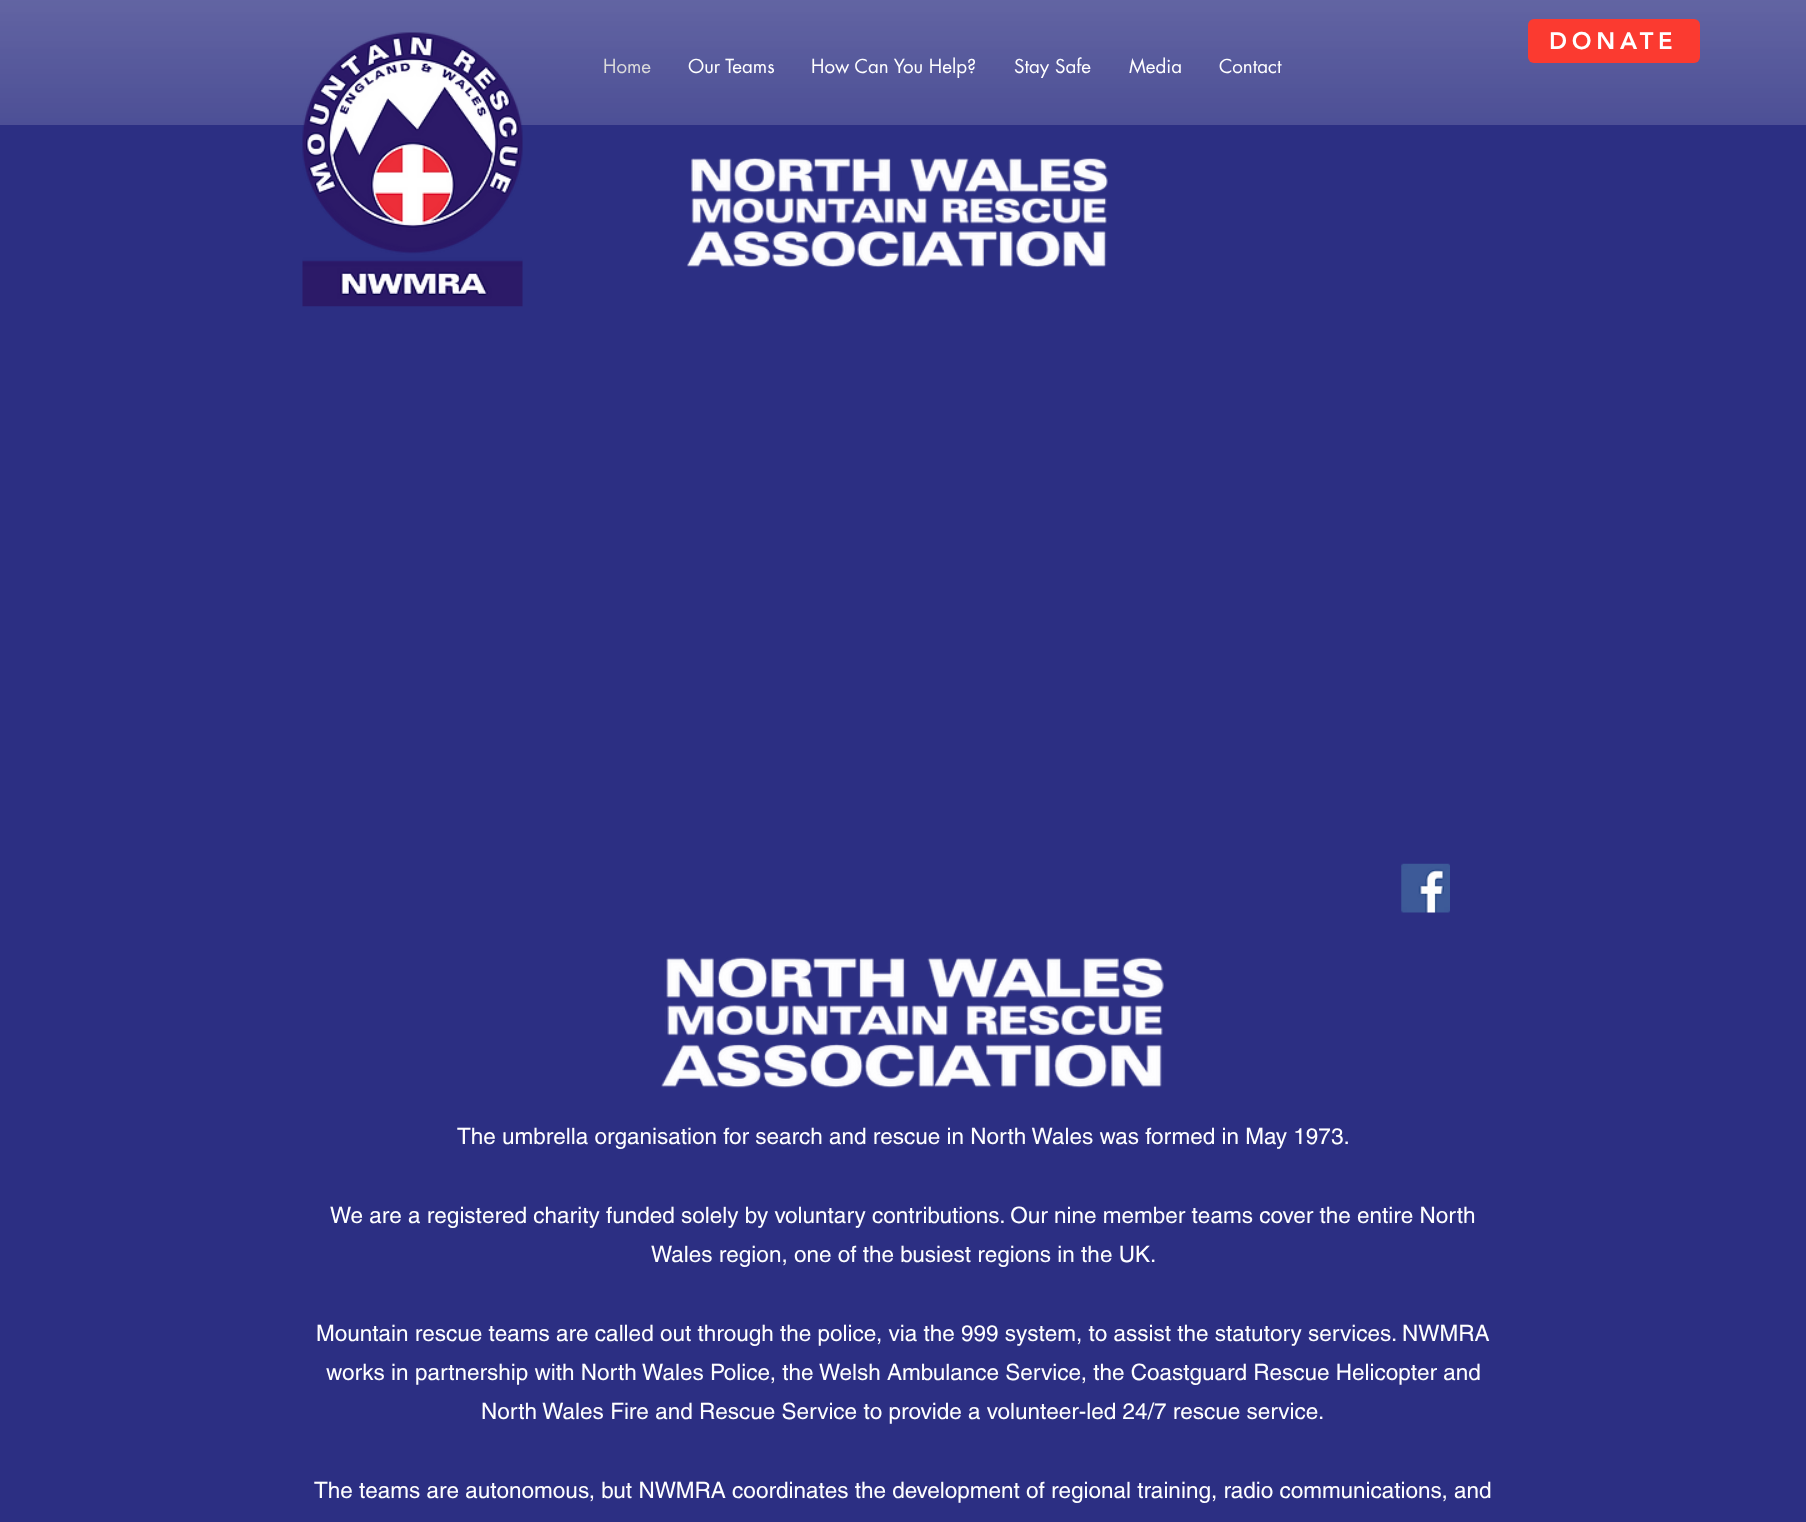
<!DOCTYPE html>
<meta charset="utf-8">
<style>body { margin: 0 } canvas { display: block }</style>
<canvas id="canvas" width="1806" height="1522"></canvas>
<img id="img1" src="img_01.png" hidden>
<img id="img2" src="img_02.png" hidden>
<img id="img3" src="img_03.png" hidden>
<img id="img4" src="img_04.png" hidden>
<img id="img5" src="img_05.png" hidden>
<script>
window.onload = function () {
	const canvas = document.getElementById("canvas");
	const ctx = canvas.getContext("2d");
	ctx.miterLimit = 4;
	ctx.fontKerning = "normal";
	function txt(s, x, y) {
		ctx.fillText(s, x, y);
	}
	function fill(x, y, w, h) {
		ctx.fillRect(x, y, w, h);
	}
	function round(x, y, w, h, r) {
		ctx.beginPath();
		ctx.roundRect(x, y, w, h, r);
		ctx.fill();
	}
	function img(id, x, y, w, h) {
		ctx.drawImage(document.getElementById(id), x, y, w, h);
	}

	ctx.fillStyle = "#2C2F83";
	fill(0, 0, 1806, 1522);
	img("img1", 0, 0, 1806, 125);
	img("img2", 302, 32, 221, 275);
	ctx.fillStyle = "#FB3A30";
	round(1528, 19, 172, 44, 6);
	img("img3", 686, 157, 422, 111);
	img("img4", 1401, 863, 49, 50);
	img("img5", 661, 957, 503, 131);
	ctx.font = "18.75px futura";
	ctx.fillStyle = "#DBDBDB";
	txt("Home", 603, 73);
	ctx.fillStyle = "#FFFFFF";
	txt("Our Teams", 688, 73);
	txt("How Can You Help?", 811, 73);
	txt("Stay Safe", 1014, 73);
	txt("Media", 1129, 73);
	txt("Contact", 1219, 73);
	ctx.letterSpacing = "4.75px";
	ctx.font = "900 23.75px 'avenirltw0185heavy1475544'";
	txt("DONATE", 1549, 49);
	ctx.letterSpacing = "0px";
	ctx.font = "22.5px helvetica";
	txt("The umbrella organisation for search and rescue in North Wales was formed in May 1973.", 457, 1144);
	txt("We are a registered charity funded solely by voluntary contributions. Our nine member teams cover the entire North", 330, 1223);
	txt("Wales region, one of the busiest regions in the UK.", 651, 1262);
	txt("Mountain rescue teams are called out through the police, via the 999 system, to assist the statutory services. NWMRA", 316, 1341);
	txt("works in partnership with North Wales Police, the Welsh Ambulance Service, the Coastguard Rescue Helicopter and", 326, 1380);
	txt("North Wales Fire and Rescue Service to provide a volunteer-led 24/7 rescue service.", 481, 1419);
	txt("The teams are autonomous, but NWMRA coordinates the development of regional training, radio communications, and", 314, 1498);
};
</script>
